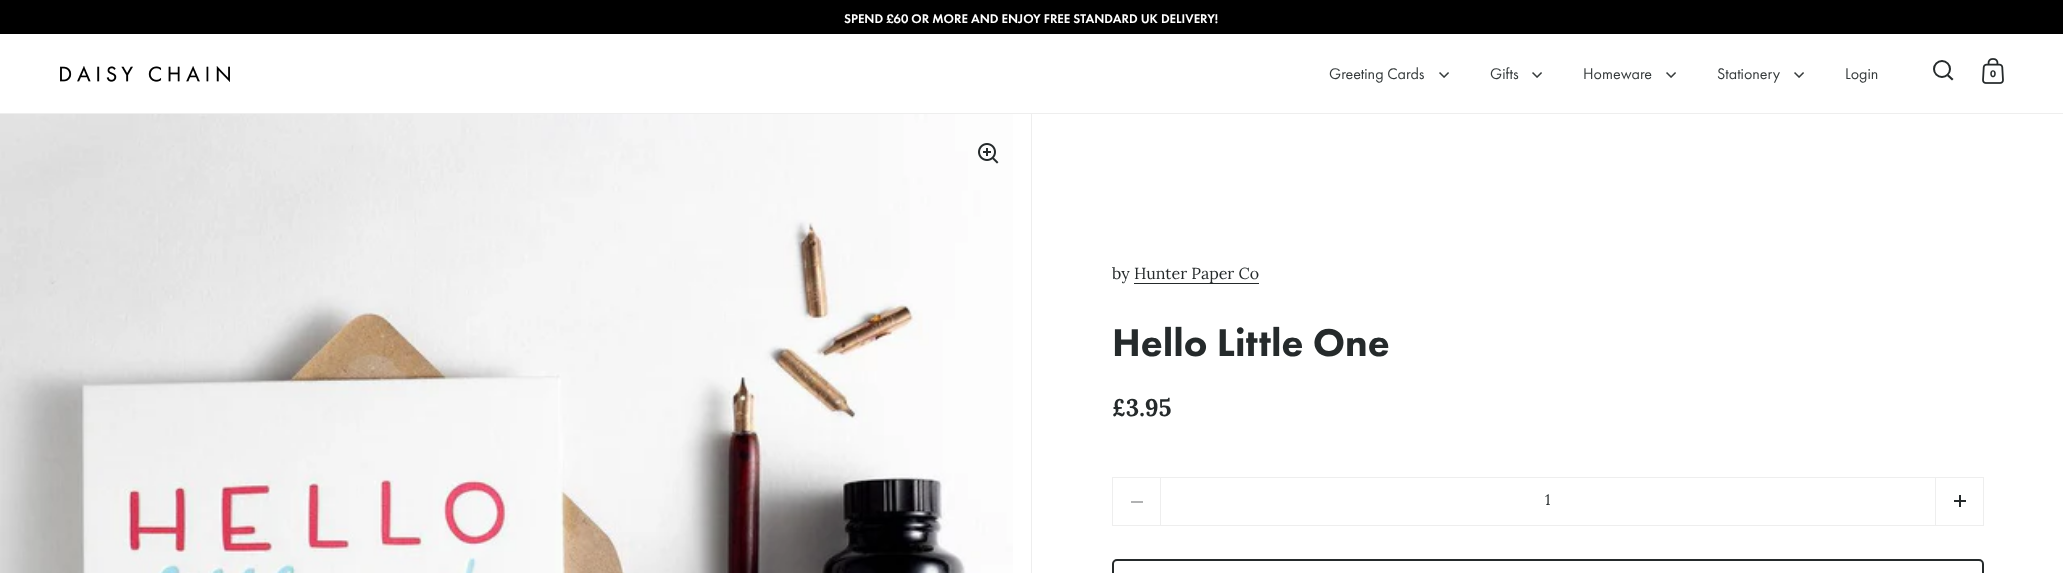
<!DOCTYPE html>
<meta charset="utf-8">
<style>body { margin: 0 } canvas { display: block }</style>
<canvas id="canvas" width="2063" height="573"></canvas>
<img id="img1" src="img_01.png" hidden>
<img id="img2" src="img_02.png" hidden>
<img id="img3" src="img_03.png" hidden>
<img id="img4" src="img_04.png" hidden>
<img id="img5" src="img_05.png" hidden>
<script>
window.onload = function () {
	const canvas = document.getElementById("canvas");
	const ctx = canvas.getContext("2d");
	ctx.miterLimit = 4;
	ctx.fontKerning = "normal";
	function txt(s, x, y) {
		ctx.fillText(s, x, y);
	}
	function fill(x, y, w, h) {
		ctx.fillRect(x, y, w, h);
	}
	function img(id, x, y, w, h) {
		ctx.drawImage(document.getElementById(id), x, y, w, h);
	}

	ctx.fillStyle = "#FFFFFF";
	fill(0, 0, 2063, 573);
	ctx.fillStyle = "#000000";
	fill(0, 0, 2063, 34);
	ctx.fillStyle = "#EEEEEE";
	fill(0, 113, 2063, 1);
	img("img1", 60, 66, 170, 16);
	img("img2", 1439, 72, 10, 6);
	img("img2", 1532, 72, 10, 6);
	img("img2", 1666, 72, 10, 6);
	img("img2", 1794, 72, 10, 6);
	ctx.beginPath();
	ctx.arc(1942, 69, 8, 0, Math.PI * 2);
	ctx.strokeStyle = "#252A2B";
	ctx.lineWidth = 2;
	ctx.stroke();
	ctx.fillStyle = "#252A2B";
	ctx.beginPath();
	ctx.moveTo(1947, 76);
	ctx.lineTo(1948.5, 74.5);
	ctx.lineTo(1953.5, 79);
	ctx.lineTo(1952, 80.5);
	ctx.closePath();
	ctx.fill();
	img("img3", 1982, 58, 22, 26);
	img("img4", 0, 114, 1013, 459);
	img("img5", 978, 143, 21, 21);
	ctx.fillStyle = "#EEEEEE";
	fill(1031, 114, 1, 459);
	ctx.fillStyle = "#252A2B";
	fill(1134, 283, 125, 1);
	ctx.strokeStyle = "#EEEEEE";
	ctx.lineWidth = 1;
	ctx.strokeRect(1112.5, 477.5, 48, 48);
	ctx.fillStyle = "#B1B2B3";
	fill(1131, 501, 12, 2);
	ctx.fillStyle = "#EEEEEE";
	fill(1161, 477, 774, 1);
	fill(1161, 525, 774, 1);
	ctx.strokeRect(1935.5, 477.5, 48, 48);
	ctx.fillStyle = "#252A2B";
	fill(1959, 495, 2, 12);
	fill(1954, 500, 12, 2);
	ctx.beginPath();
	ctx.roundRect(1113, 560, 870, 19, 4);
	ctx.strokeStyle = "#252A2B";
	ctx.lineWidth = 2;
	ctx.stroke();
	ctx.font = "500 13px Futura PT";
	ctx.fillStyle = "#FFFFFF";
	txt("SPEND £60 OR MORE AND ENJOY FREE STANDARD UK DELIVERY!", 844, 23);
	ctx.font = "16px Futura PT";
	ctx.fillStyle = "#363B3C";
	txt("Greeting Cards", 1329, 79);
	txt("Gifts", 1490, 79);
	txt("Homeware", 1583, 79);
	txt("Stationery", 1717, 79);
	txt("Login", 1845, 79);
	ctx.font = "900 10px Futura PT";
	ctx.fillStyle = "#252A2B";
	txt("0", 1990, 77);
	ctx.font = "16px Lora";
	txt("by", 1112, 279);
	txt("Hunter Paper Co", 1134, 279);
	ctx.font = "900 40px Futura PT";
	txt("Hello Little One", 1112, 356);
	ctx.font = "bold 24px Lora";
	txt("£3.95", 1112, 416);
	ctx.font = "15px Lora";
	txt("1", 1545, 505);
};
</script>
